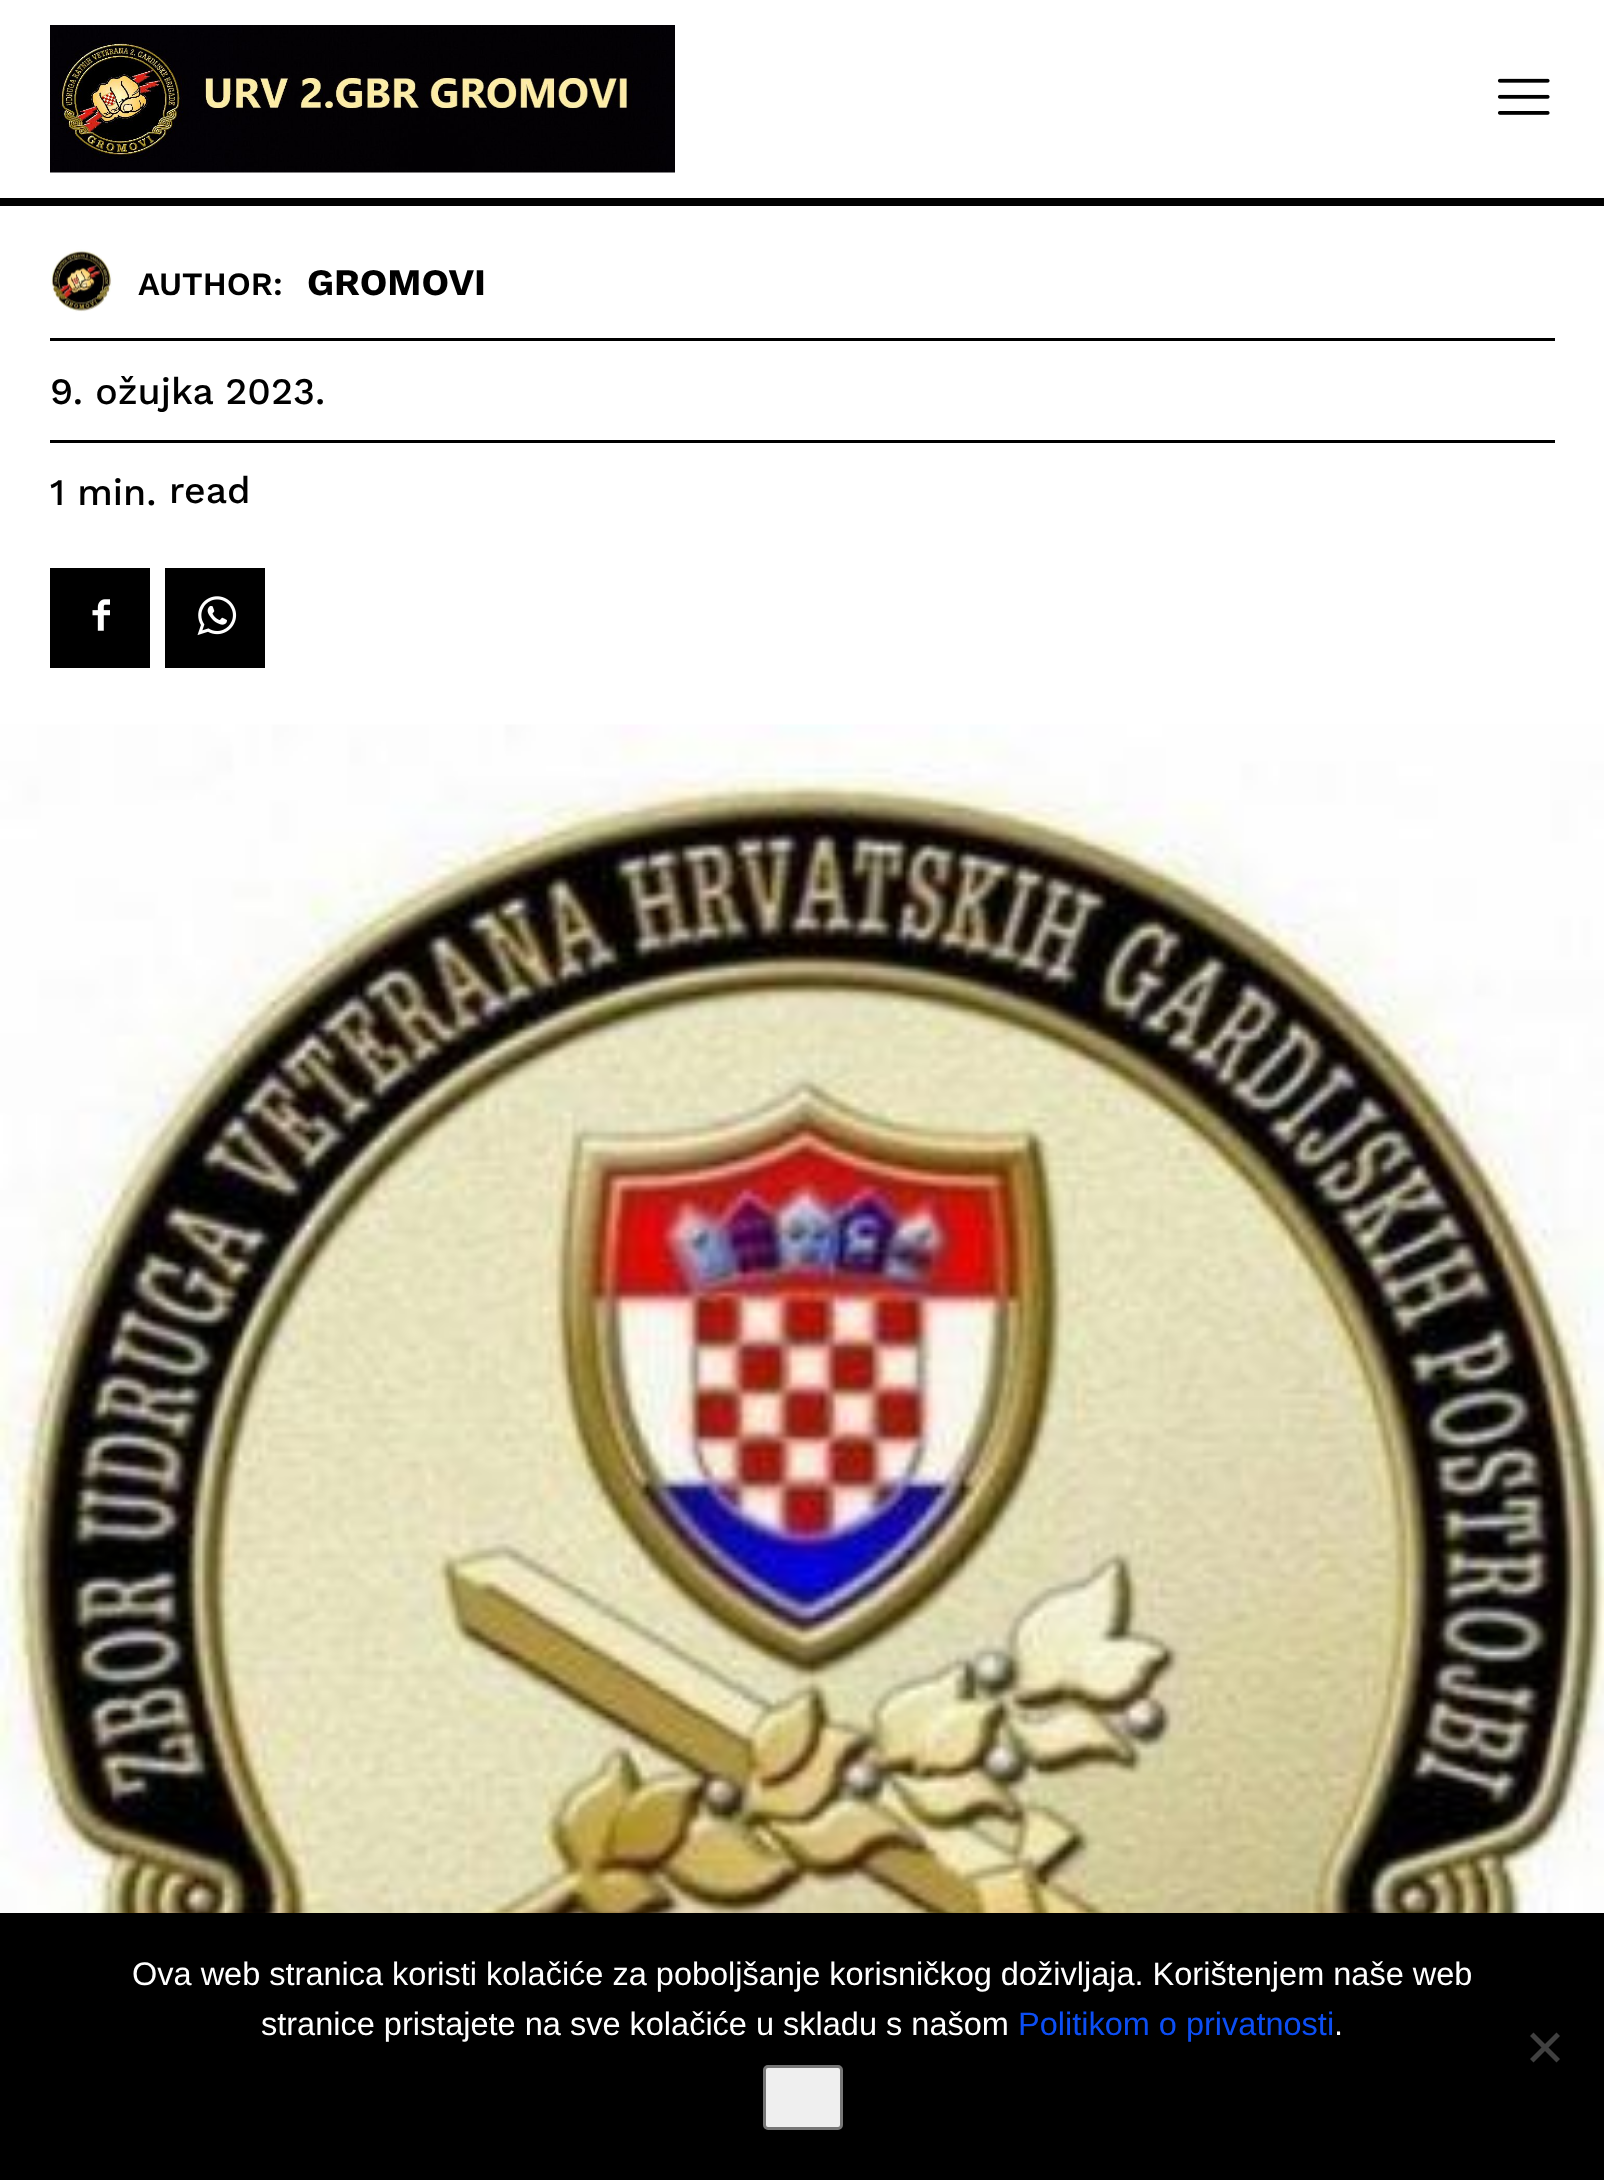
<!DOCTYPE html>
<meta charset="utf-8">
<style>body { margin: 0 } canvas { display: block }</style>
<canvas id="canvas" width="1604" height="2180"></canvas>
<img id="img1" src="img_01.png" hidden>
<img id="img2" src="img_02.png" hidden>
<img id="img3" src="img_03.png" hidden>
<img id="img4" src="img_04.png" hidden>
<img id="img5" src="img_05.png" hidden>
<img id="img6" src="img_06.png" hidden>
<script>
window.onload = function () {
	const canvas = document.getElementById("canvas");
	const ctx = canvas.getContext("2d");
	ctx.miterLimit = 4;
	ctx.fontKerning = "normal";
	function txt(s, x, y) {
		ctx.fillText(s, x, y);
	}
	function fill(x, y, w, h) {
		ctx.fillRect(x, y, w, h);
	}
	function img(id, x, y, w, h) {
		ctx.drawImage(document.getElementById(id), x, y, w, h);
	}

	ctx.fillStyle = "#FFFFFF";
	fill(0, 0, 1604, 2180);
	ctx.fillStyle = "#000000";
	fill(0, 198, 1604, 8);
	img("img1", 50, 25, 625, 148);
	img("img2", 1497, 78, 53, 37);
	img("img3", 50, 249, 62, 63);
	fill(50, 338, 1505, 3);
	fill(50, 440, 1505, 3);
	fill(50, 568, 100, 100);
	img("img4", 92, 599, 18, 32);
	fill(165, 568, 100, 100);
	img("img5", 197, 596, 40, 40);
	img("img6", 0, 724, 1604, 1189);
	fill(0, 1913, 1604, 267);
	ctx.fillStyle = "#404040";
	ctx.beginPath();
	ctx.moveTo(1556.5, 2032.5);
	ctx.lineTo(1560, 2036);
	ctx.lineTo(1533.5, 2062.5);
	ctx.lineTo(1530, 2059);
	ctx.closePath();
	ctx.fill();
	ctx.beginPath();
	ctx.moveTo(1530, 2036);
	ctx.lineTo(1533.5, 2032.5);
	ctx.lineTo(1560, 2059);
	ctx.lineTo(1556.5, 2062.5);
	ctx.closePath();
	ctx.fill();
	ctx.fillStyle = "#EFEFEF";
	ctx.beginPath();
	ctx.roundRect(764.5, 2066.5, 77, 62, 3.5);
	ctx.fill();
	ctx.strokeStyle = "#767676";
	ctx.lineWidth = 3;
	ctx.stroke();
	ctx.font = "600 32.5px Work Sans";
	ctx.fillStyle = "#000000";
	txt("AUTHOR:", 138, 295);
	ctx.font = "bold 37.5px Work Sans";
	txt("GROMOVI", 307, 295);
	ctx.font = "500 37.5px Work Sans";
	txt("9. ožujka 2023.", 50, 404);
	txt("1 min.", 50, 505);
	txt("read", 169, 503);
	ctx.font = "32.5px Liberation Sans";
	ctx.fillStyle = "#FFFFFF";
	txt("Ova web stranica koristi kolačiće za poboljšanje korisničkog doživljaja. Korištenjem naše web", 132, 1985);
	txt("stranice pristajete na sve kolačiće u skladu s našom", 261, 2035);
	ctx.fillStyle = "#0C4EF4";
	txt("Politikom o privatnosti", 1018, 2035);
	ctx.fillStyle = "#FFFFFF";
	txt(".", 1334, 2035);
};
</script>
